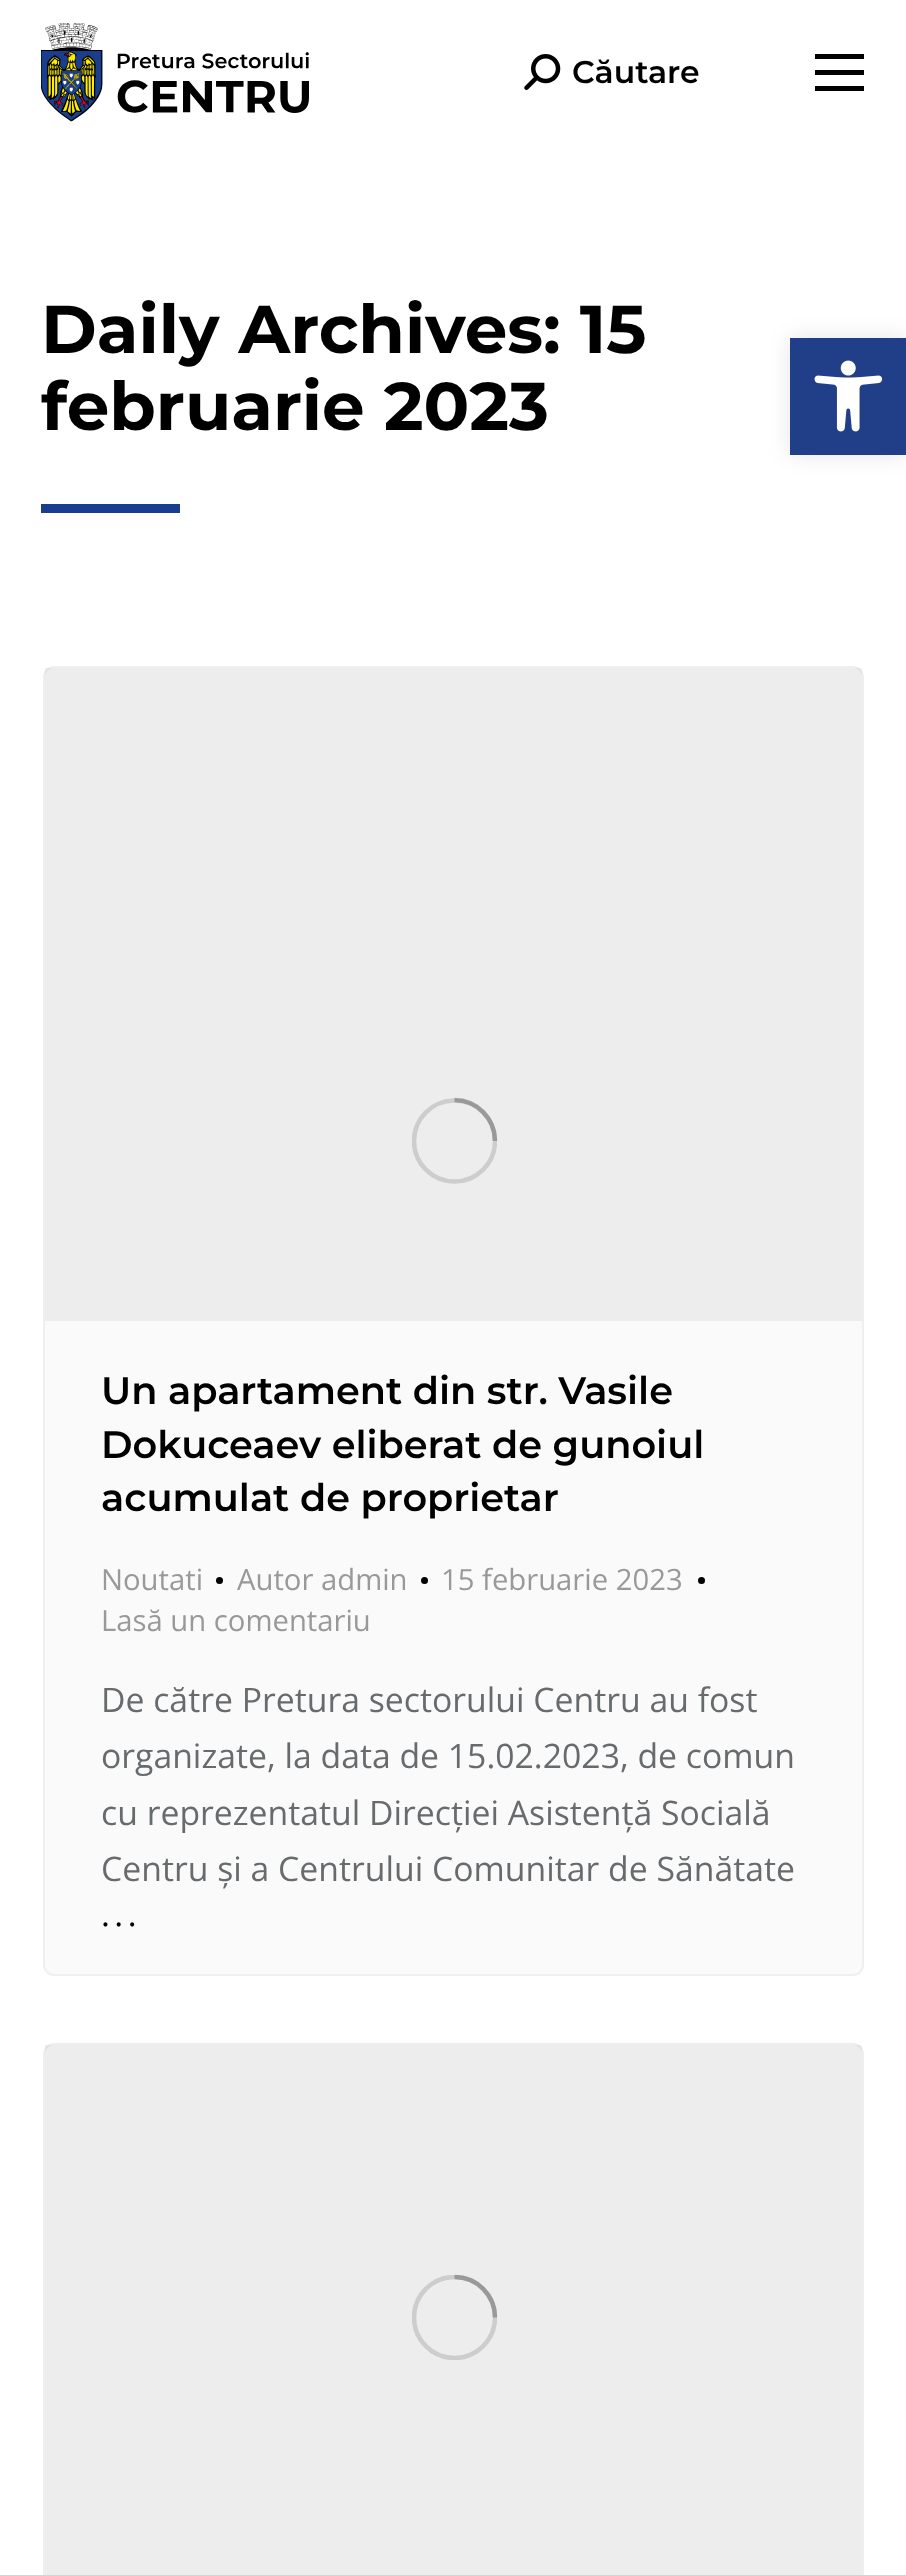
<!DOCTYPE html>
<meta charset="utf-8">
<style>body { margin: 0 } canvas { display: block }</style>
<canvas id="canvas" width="906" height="2575"></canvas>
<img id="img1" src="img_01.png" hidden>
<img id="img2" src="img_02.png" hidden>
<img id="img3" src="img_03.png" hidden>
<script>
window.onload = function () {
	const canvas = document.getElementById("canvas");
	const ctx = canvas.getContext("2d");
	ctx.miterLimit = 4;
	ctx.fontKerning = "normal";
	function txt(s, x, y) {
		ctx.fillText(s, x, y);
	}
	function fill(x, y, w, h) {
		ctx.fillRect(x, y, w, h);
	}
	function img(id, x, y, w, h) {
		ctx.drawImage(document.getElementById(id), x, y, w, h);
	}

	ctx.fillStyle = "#FFFFFF";
	fill(0, 0, 906, 2575);
	img("img1", 41, 23, 268, 99);
	img("img2", 524, 54, 37, 36);
	ctx.fillStyle = "#000000";
	fill(815, 54, 49, 5);
	fill(815, 70, 49, 5);
	fill(815, 86, 49, 5);
	ctx.fillStyle = "#193E8E";
	fill(41, 504, 139, 9);
	ctx.fillStyle = "#FAFAFA";
	ctx.beginPath();
	ctx.roundRect(44, 667, 819, 1308, 10);
	ctx.fill();
	ctx.strokeStyle = "#EFEFEF";
	ctx.lineWidth = 2;
	ctx.stroke();
	ctx.fillStyle = "rgba(0, 0, 0, 0.05)";
	fill(45, 668, 817, 653);
	ctx.save();
	ctx.beginPath();
	ctx.rect(412, 1098, 85, 86);
	ctx.clip();
	ctx.beginPath();
	ctx.arc(454.5, 1141, 40.5, 0, Math.PI * 2);
	ctx.strokeStyle = "#CDCDCD";
	ctx.lineWidth = 4.5;
	ctx.stroke();
	ctx.restore();
	ctx.beginPath();
	ctx.moveTo(495, 1141);
	ctx.bezierCurveTo(495, 1118.5, 477, 1100, 454.5, 1100);
	ctx.strokeStyle = "rgba(0, 0, 0, 0.25)";
	ctx.lineWidth = 4.5;
	ctx.stroke();
	ctx.fillStyle = "#000000";
	ctx.beginPath();
	ctx.arc(219.5, 1580.5, 3.5, 0, Math.PI * 2);
	ctx.fill();
	ctx.beginPath();
	ctx.arc(424.5, 1580.5, 3.5, 0, Math.PI * 2);
	ctx.fill();
	ctx.beginPath();
	ctx.arc(701.5, 1580.5, 3.5, 0, Math.PI * 2);
	ctx.fill();
	ctx.fillStyle = "#FAFAFA";
	ctx.beginPath();
	ctx.roundRect(44, 2044, 819, 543, 10);
	ctx.fill();
	ctx.strokeStyle = "#EFEFEF";
	ctx.lineWidth = 2;
	ctx.stroke();
	ctx.fillStyle = "rgba(0, 0, 0, 0.05)";
	fill(45, 2045, 817, 530);
	ctx.save();
	ctx.beginPath();
	ctx.rect(412, 2275, 85, 85);
	ctx.clip();
	ctx.beginPath();
	ctx.arc(454.5, 2317.5, 40.5, 0, Math.PI * 2);
	ctx.strokeStyle = "#CDCDCD";
	ctx.lineWidth = 4.5;
	ctx.stroke();
	ctx.restore();
	ctx.beginPath();
	ctx.moveTo(495, 2317.5);
	ctx.bezierCurveTo(495, 2295, 477, 2277, 454.5, 2277);
	ctx.strokeStyle = "rgba(0, 0, 0, 0.25)";
	ctx.lineWidth = 4.5;
	ctx.stroke();
	ctx.fillStyle = "rgba(0, 0, 0, 0.1)";
	ctx.filter = "blur(11px)";
	ctx.beginPath();
	ctx.rect(790, 338, 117, 117);
	ctx.fill();
	ctx.filter = "none";
	ctx.fillStyle = "#213F89";
	fill(790, 338, 116, 117);
	img("img3", 814, 360, 69, 72);
	ctx.font = "600 31.5px Montserrat";
	ctx.fillStyle = "#000000";
	txt("Căutare", 572, 83);
	ctx.font = "bold 67.5px Montserrat";
	txt("Daily Archives: 15", 41, 353);
	txt("februarie 2023", 41, 430);
	ctx.font = "600 38.25px Montserrat";
	txt("Un apartament din str. Vasile", 101, 1404);
	txt("Dokuceaev eliberat de gunoiul", 101, 1458);
	txt("acumulat de proprietar", 101, 1511);
	ctx.font = "29.25px Open Sans";
	ctx.fillStyle = "#999999";
	txt("Noutati", 101, 1590);
	txt("Autor admin", 237, 1590);
	txt("15 februarie 2023", 441, 1590);
	txt("Lasă un comentariu", 101, 1631);
	ctx.font = "33.75px Open Sans";
	ctx.fillStyle = "#686B6D";
	txt("De către Pretura sectorului Centru au fost", 101, 1712);
	txt("organizate, la data de 15.02.2023, de comun", 101, 1768);
	txt("cu reprezentatul Direcției Asistență Socială", 101, 1825);
	txt("Centru și a Centrului Comunitar de Sănătate", 101, 1881);
	ctx.letterSpacing = "4.5px";
	ctx.fillStyle = "#000000";
	txt("...", 101, 1926);
};
</script>
